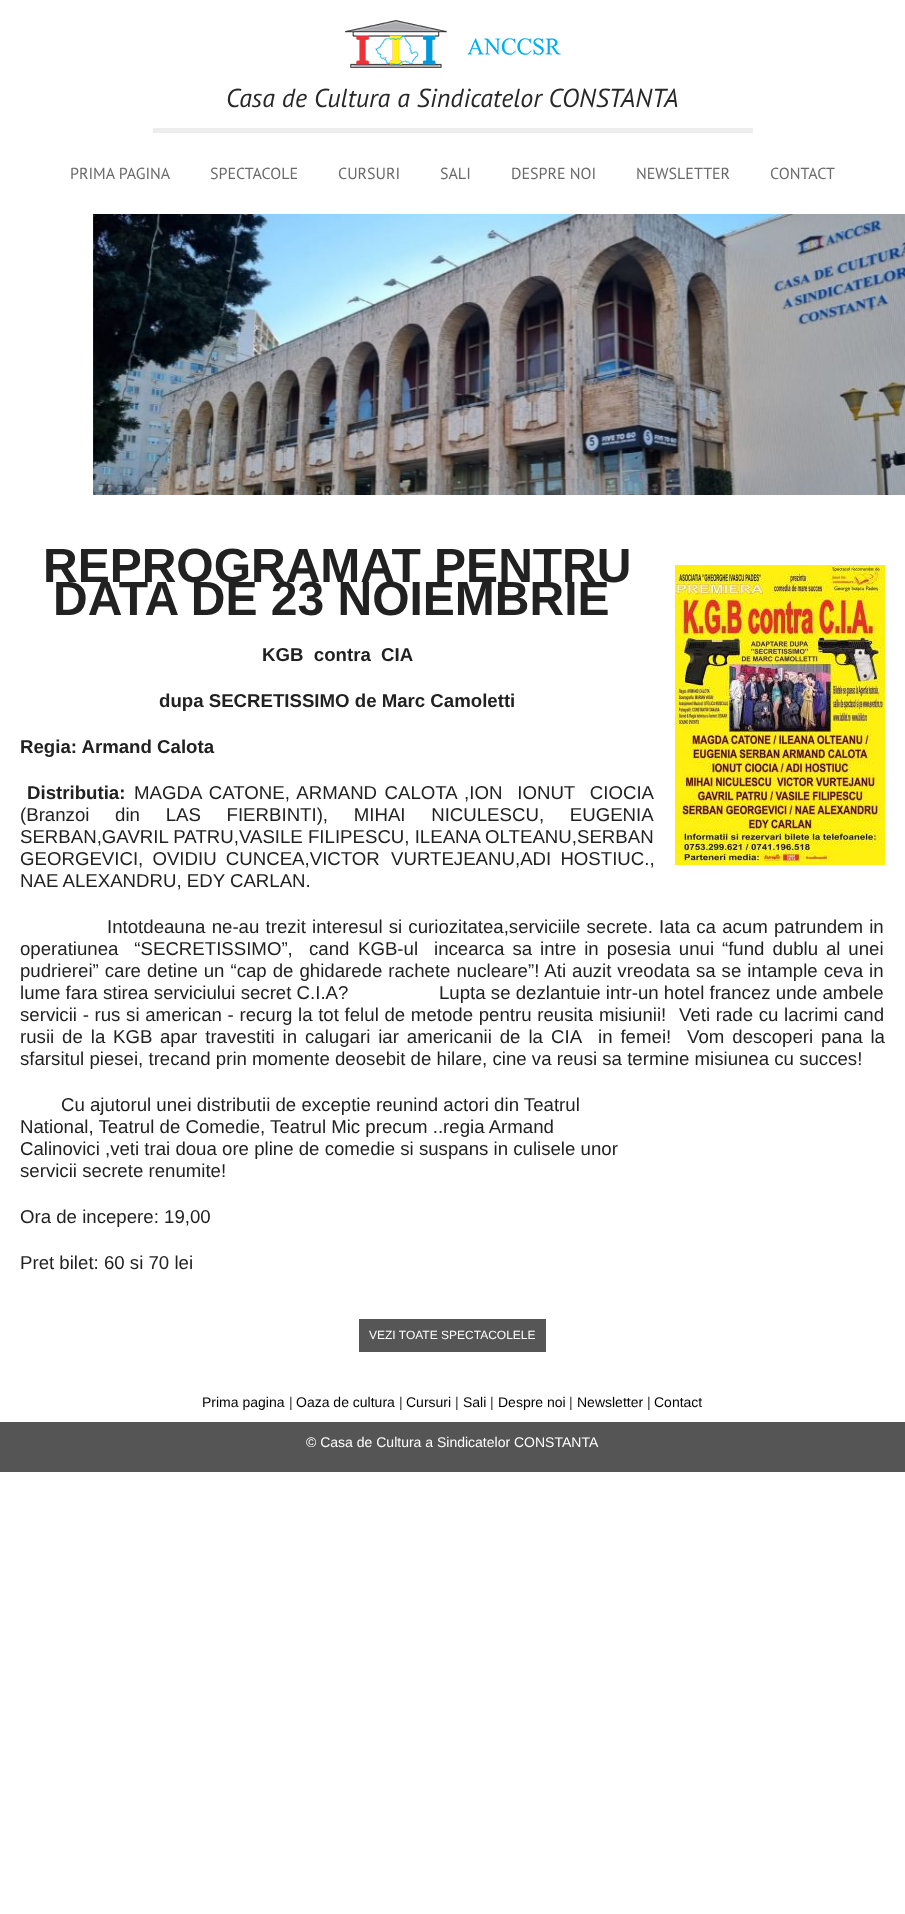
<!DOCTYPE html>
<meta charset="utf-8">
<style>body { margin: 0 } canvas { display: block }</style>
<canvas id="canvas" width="905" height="1914"></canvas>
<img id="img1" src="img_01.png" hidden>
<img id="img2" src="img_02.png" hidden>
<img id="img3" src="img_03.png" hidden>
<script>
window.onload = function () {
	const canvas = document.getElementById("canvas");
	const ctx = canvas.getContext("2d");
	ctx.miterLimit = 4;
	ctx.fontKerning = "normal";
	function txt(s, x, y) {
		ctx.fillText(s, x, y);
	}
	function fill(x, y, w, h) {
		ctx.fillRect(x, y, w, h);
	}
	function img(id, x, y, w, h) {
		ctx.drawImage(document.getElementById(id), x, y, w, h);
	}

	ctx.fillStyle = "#FFFFFF";
	fill(0, 0, 905, 1914);
	ctx.fillStyle = "#EDEDED";
	fill(153, 128, 600, 5);
	img("img1", 345, 20, 216, 48);
	img("img2", 93, 214, 812, 281);
	img("img3", 675, 565, 210, 300);
	ctx.fillStyle = "#565656";
	fill(359, 1319, 187, 33);
	ctx.fillStyle = "#555555";
	fill(0, 1422, 905, 50);
	ctx.font = "italic 26px PT Sans";
	ctx.fillStyle = "#282828";
	txt("Casa de Cultura a Sindicatelor CONSTANTA", 226, 107);
	ctx.font = "16px PT Sans";
	ctx.fillStyle = "#6A6A6A";
	txt("PRIMA PAGINA", 70, 179);
	txt("SPECTACOLE", 210, 179);
	txt("CURSURI", 338, 179);
	txt("SALI", 440, 179);
	txt("DESPRE NOI", 511, 179);
	txt("NEWSLETTER", 636, 179);
	txt("CONTACT", 770, 179);
	ctx.font = "bold 48px Liberation Sans";
	ctx.fillStyle = "#212121";
	txt("REPROGRAMAT PENTRU", 43, 582);
	txt("DATA DE 23 NOIEMBRIE", 53, 615);
	ctx.font = "bold 18.65px Liberation Sans";
	txt("KGB  contra  CIA", 262, 661);
	txt("dupa SECRETISSIMO de Marc Camoletti", 159, 707);
	txt("Regia: Armand Calota", 20, 753);
	txt("Distributia:", 27, 799);
	ctx.wordSpacing = "2.25px";
	ctx.font = "18.65px Liberation Sans";
	txt("MAGDA CATONE, ARMAND CALOTA ,ION  IONUT  CIOCIA", 134, 799);
	ctx.wordSpacing = "20.5px";
	txt("(Branzoi din LAS FIERBINTI), MIHAI NICULESCU, EUGENIA", 20, 821);
	ctx.wordSpacing = "0px";
	txt("SERBAN,GAVRIL PATRU,VASILE FILIPESCU, ILEANA OLTEANU,SERBAN", 20, 843);
	ctx.wordSpacing = "4px";
	txt("GEORGEVICI, OVIDIU CUNCEA,VICTOR", 20, 865);
	txt("VURTEJEANU,ADI HOSTIUC.,", 391, 865);
	ctx.wordSpacing = "0px";
	txt("NAE ALEXANDRU, EDY CARLAN.", 20, 887);
	ctx.wordSpacing = "1px";
	txt("Intotdeauna ne-au trezit interesul si curiozitatea,serviciile secrete. Iata ca acum patrundem in", 107, 933);
	ctx.wordSpacing = "2.75px";
	txt("operatiunea  “SECRETISSIMO”,", 20, 955);
	ctx.wordSpacing = "0px";
	txt("cand", 309, 955);
	txt("KGB-ul", 358, 955);
	ctx.wordSpacing = "2.75px";
	txt("incearca sa intre in posesia unui “fund dublu al unei", 434, 955);
	ctx.wordSpacing = "0.8px";
	txt("pudrierei” care detine un “cap de ghidarede rachete nucleare”! Ati auzit vreodata sa se intample ceva in", 20, 977);
	ctx.wordSpacing = "0px";
	txt("lume fara stirea serviciului secret C.I.A?", 20, 999);
	txt("Lupta se dezlantuie intr-un hotel francez unde ambele", 439, 999);
	ctx.wordSpacing = "0.5px";
	txt("servicii - rus si american - recurg la tot felul de metode pentru reusita misiunii!", 20, 1021);
	txt("Veti rade cu lacrimi cand", 679, 1021);
	ctx.wordSpacing = "2.75px";
	txt("rusii de la", 20, 1043);
	ctx.wordSpacing = "0px";
	txt("KGB", 113, 1043);
	ctx.wordSpacing = "2.75px";
	txt("apar travestiti in calugari iar americanii de la", 160, 1043);
	ctx.wordSpacing = "0px";
	txt("CIA", 551, 1043);
	ctx.wordSpacing = "2.75px";
	txt("in femei!  Vom descoperi pana la", 598, 1043);
	ctx.wordSpacing = "0px";
	txt("sfarsitul piesei, trecand prin momente deosebit de hilare, cine va reusi sa termine misiunea cu succes!", 20, 1065);
	txt("Cu ajutorul unei distributii de exceptie reunind actori din Teatrul", 61, 1111);
	txt("National, Teatrul de Comedie, Teatrul Mic precum ..regia Armand", 20, 1133);
	txt("Calinovici ,veti trai doua ore pline de comedie si suspans in culisele unor", 20, 1155);
	txt("servicii secrete renumite!", 20, 1177);
	txt("Ora de incepere: 19,00", 20, 1223);
	txt("Pret bilet: 60 si 70 lei", 20, 1269);
	ctx.font = "12px Liberation Sans";
	ctx.fillStyle = "#FFFFFF";
	txt("VEZI TOATE SPECTACOLELE", 369, 1339);
	ctx.font = "14px Liberation Sans";
	ctx.fillStyle = "#000000";
	txt("Prima pagina", 202, 1407);
	ctx.fillStyle = "#333333";
	txt("|", 289, 1407);
	ctx.fillStyle = "#000000";
	txt("Oaza de cultura", 296, 1407);
	ctx.fillStyle = "#333333";
	txt("|", 399, 1407);
	ctx.fillStyle = "#000000";
	txt("Cursuri", 406, 1407);
	ctx.fillStyle = "#333333";
	txt("|", 455, 1407);
	ctx.fillStyle = "#000000";
	txt("Sali", 463, 1407);
	ctx.fillStyle = "#333333";
	txt("|", 490, 1407);
	ctx.fillStyle = "#000000";
	txt("Despre noi", 498, 1407);
	ctx.fillStyle = "#333333";
	txt("|", 569, 1407);
	ctx.fillStyle = "#000000";
	txt("Newsletter", 577, 1407);
	ctx.fillStyle = "#333333";
	txt("|", 647, 1407);
	ctx.fillStyle = "#000000";
	txt("Contact", 654, 1407);
	ctx.fillStyle = "#FFFFFF";
	txt("© Casa de Cultura a Sindicatelor CONSTANTA", 306, 1447);
};
</script>
